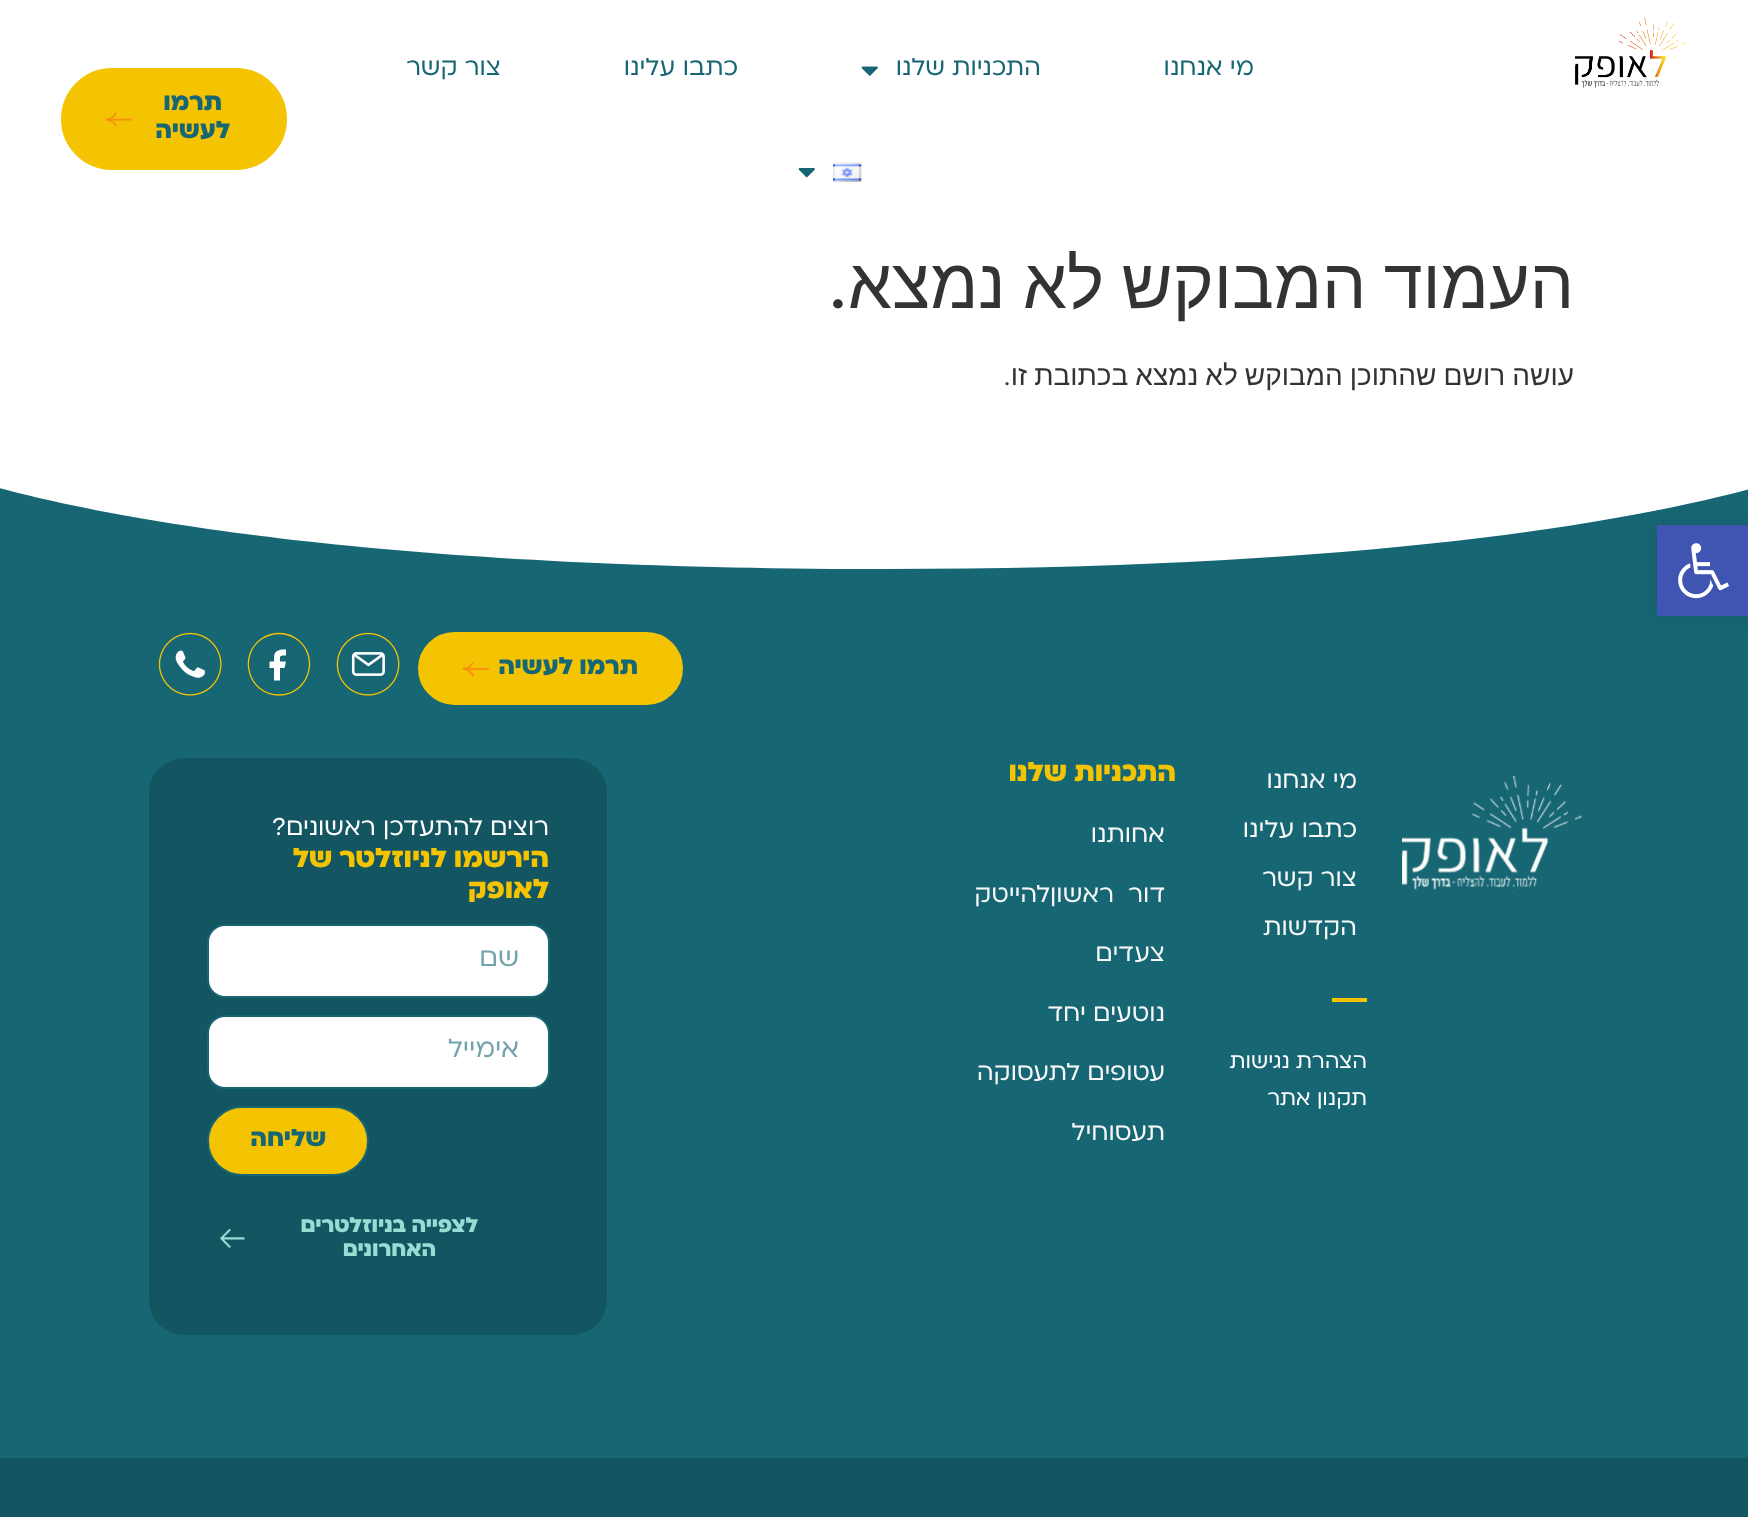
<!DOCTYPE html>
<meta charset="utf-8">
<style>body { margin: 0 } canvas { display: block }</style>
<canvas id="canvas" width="1748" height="1517"></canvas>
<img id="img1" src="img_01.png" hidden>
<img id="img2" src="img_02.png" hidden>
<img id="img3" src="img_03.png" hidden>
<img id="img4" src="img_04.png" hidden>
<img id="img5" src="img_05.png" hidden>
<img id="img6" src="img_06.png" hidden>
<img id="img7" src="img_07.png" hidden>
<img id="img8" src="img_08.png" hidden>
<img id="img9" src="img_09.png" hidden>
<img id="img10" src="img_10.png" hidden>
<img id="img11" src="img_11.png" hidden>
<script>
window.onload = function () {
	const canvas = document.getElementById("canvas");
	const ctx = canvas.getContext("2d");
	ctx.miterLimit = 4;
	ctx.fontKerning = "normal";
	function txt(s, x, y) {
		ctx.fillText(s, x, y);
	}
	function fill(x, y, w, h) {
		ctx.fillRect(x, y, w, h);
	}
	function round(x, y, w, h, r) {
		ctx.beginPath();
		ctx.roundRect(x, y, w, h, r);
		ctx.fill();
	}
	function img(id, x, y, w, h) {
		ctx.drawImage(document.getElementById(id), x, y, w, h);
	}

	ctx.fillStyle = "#FFFFFF";
	fill(0, 0, 1748, 1517);
	img("img1", 1575, 17, 112, 71);
	img("img2", 861, 66, 17, 10);
	img("img3", 833, 162, 29, 20);
	img("img4", 798, 168, 17, 10);
	ctx.fillStyle = "#F4C403";
	ctx.beginPath();
	ctx.roundRect(62, 69, 224, 100, 50);
	ctx.fill();
	ctx.strokeStyle = "#F4C403";
	ctx.lineWidth = 2;
	ctx.stroke();
	img("img5", 105, 112, 28, 14);
	ctx.fillStyle = "#176674";
	fill(0, 488, 1748, 970);
	ctx.fillStyle = "#FFFFFF";
	ctx.beginPath();
	ctx.moveTo(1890, 426);
	ctx.lineTo(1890, 420);
	ctx.lineTo(-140, 420);
	ctx.lineTo(-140, 426);
	ctx.bezierCurveTo(-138, 454, 117, 568, 875, 569);
	ctx.bezierCurveTo(1633, 570, 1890, 454, 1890, 426);
	ctx.closePath();
	ctx.fill();
	ctx.fillStyle = "rgba(0, 0, 0, 0.1)";
	ctx.filter = "blur(9px)";
	ctx.beginPath();
	ctx.rect(1657, 525, 91, 91);
	ctx.fill();
	ctx.filter = "none";
	ctx.fillStyle = "#4054B2";
	fill(1657, 525, 91, 91);
	img("img6", 1678, 543, 51, 56);
	ctx.fillStyle = "#F4C403";
	ctx.beginPath();
	ctx.roundRect(419, 633, 263, 71, 35.5);
	ctx.fill();
	ctx.stroke();
	img("img7", 462, 662, 27, 15);
	img("img8", 336, 632, 64, 64);
	ctx.beginPath();
	ctx.moveTo(279, 695);
	ctx.bezierCurveTo(248.5, 695, 237, 655.5, 262, 638.5);
	ctx.bezierCurveTo(267, 635.5, 273, 633.5, 279, 633.5);
	ctx.bezierCurveTo(285, 633.5, 291, 635.5, 296, 638.5);
	ctx.bezierCurveTo(321, 655.5, 309, 695, 279, 695);
	ctx.closePath();
	ctx.lineWidth = 1.3;
	ctx.stroke();
	ctx.fillStyle = "#FFFFFF";
	ctx.beginPath();
	ctx.moveTo(286, 649.5);
	ctx.bezierCurveTo(281, 649.5, 274.5, 649.5, 274, 656.5);
	ctx.lineTo(274, 661.5);
	ctx.lineTo(269.5, 661.5);
	ctx.lineTo(269.5, 668);
	ctx.lineTo(274, 668);
	ctx.lineTo(274, 680.5);
	ctx.lineTo(280, 680.5);
	ctx.lineTo(280, 668);
	ctx.lineTo(284.5, 668);
	ctx.lineTo(286, 661.5);
	ctx.lineTo(280, 661.5);
	ctx.bezierCurveTo(280, 655, 279.5, 655.5, 286, 655.5);
	ctx.closePath();
	ctx.fill();
	img("img9", 158, 632, 64, 64);
	img("img10", 1402, 775, 180, 117);
	ctx.fillStyle = "#F4C403";
	fill(1332, 998, 35, 4);
	ctx.fillStyle = "#135561";
	round(149, 758, 458, 577, 35);
	ctx.fillStyle = "#FFFFFF";
	ctx.beginPath();
	ctx.roundRect(208, 925, 341, 72, 17);
	ctx.fill();
	ctx.strokeStyle = "#176674";
	ctx.lineWidth = 2;
	ctx.stroke();
	ctx.beginPath();
	ctx.roundRect(208, 1016, 341, 72, 17);
	ctx.fill();
	ctx.stroke();
	ctx.fillStyle = "#F4C403";
	ctx.beginPath();
	ctx.roundRect(208, 1107, 160, 68, 34);
	ctx.fill();
	ctx.stroke();
	img("img11", 220, 1229, 25, 19);
	ctx.fillStyle = "#135561";
	fill(0, 1458, 1748, 59);
	ctx.direction = "rtl";
	ctx.font = "28px 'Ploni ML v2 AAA'";
	ctx.fillStyle = "#176674";
	txt("מי אנחנו", 1254, 75);
	txt("התכניות שלנו", 1041, 75);
	txt("כתבו עלינו", 738, 75);
	txt("צור קשר", 501, 75);
	ctx.font = "800 28px 'Ploni ML v2 AAA'";
	txt("תרמו", 222, 110);
	txt("לעשיה", 230, 138);
	ctx.wordSpacing = "-2px";
	ctx.font = "70px Liberation Sans";
	ctx.fillStyle = "#333333";
	txt("העמוד המבוקש לא נמצא", 1574, 308);
	ctx.wordSpacing = "0px";
	ctx.font = "500 70px Roboto";
	txt(".", 848, 308);
	ctx.wordSpacing = "-0.75px";
	ctx.font = "28px Liberation Sans";
	txt("עושה רושם שהתוכן המבוקש לא נמצא בכתובת זו", 1574, 385);
	ctx.wordSpacing = "0px";
	ctx.font = "28px Roboto";
	txt(".", 1011, 385);
	ctx.font = "800 28px 'Ploni ML v2 AAA'";
	ctx.fillStyle = "#176674";
	txt("תרמו לעשיה", 638, 674);
	ctx.font = "28px 'Ploni ML v2 AAA'";
	ctx.fillStyle = "#F8F8F8";
	txt("מי אנחנו", 1357, 788);
	txt("כתבו עלינו", 1357, 837);
	txt("צור קשר", 1357, 886);
	txt("הקדשות", 1357, 935);
	ctx.font = "24.5px 'Ploni ML v2 AAA'";
	ctx.fillStyle = "#FFFFFF";
	txt("הצהרת נגישות", 1367, 1068);
	txt("תקנון אתר", 1367, 1105);
	ctx.font = "800 31.5px 'Ploni ML v2 AAA'";
	ctx.fillStyle = "#F4C403";
	txt("התכניות שלנו", 1176, 781);
	ctx.font = "28px 'Ploni ML v2 AAA'";
	ctx.fillStyle = "#F8F8F8";
	txt("אחותנו", 1165, 842);
	ctx.wordSpacing = "7px";
	txt("דור ראשוןלהייטק", 1165, 902);
	ctx.wordSpacing = "0px";
	txt("צעדים", 1165, 961);
	txt("נוטעים יחד", 1165, 1021);
	txt("עטופים לתעסוקה", 1165, 1080);
	txt("תעסוחיל", 1165, 1140);
	ctx.fillStyle = "#FFFFFF";
	txt("רוצים להתעדכן ראשונים?", 549, 835);
	ctx.font = "800 31.5px 'Ploni ML v2 AAA'";
	ctx.fillStyle = "#F4C403";
	txt("הירשמו לניוזלטר של", 549, 867);
	txt("לאופק", 549, 898);
	ctx.font = "30px 'Ploni ML v2 AAA'";
	ctx.fillStyle = "#74A3AC";
	txt("שם", 519, 966);
	txt("אימייל", 519, 1057);
	ctx.font = "800 28px 'Ploni ML v2 AAA'";
	ctx.fillStyle = "#176674";
	txt("שליחה", 326, 1146);
	ctx.font = "800 24.5px 'Ploni ML v2 AAA'";
	ctx.fillStyle = "#98DCD4";
	txt("לצפייה בניוזלטרים", 478, 1232);
	txt("האחרונים", 436, 1256);
};
</script>
